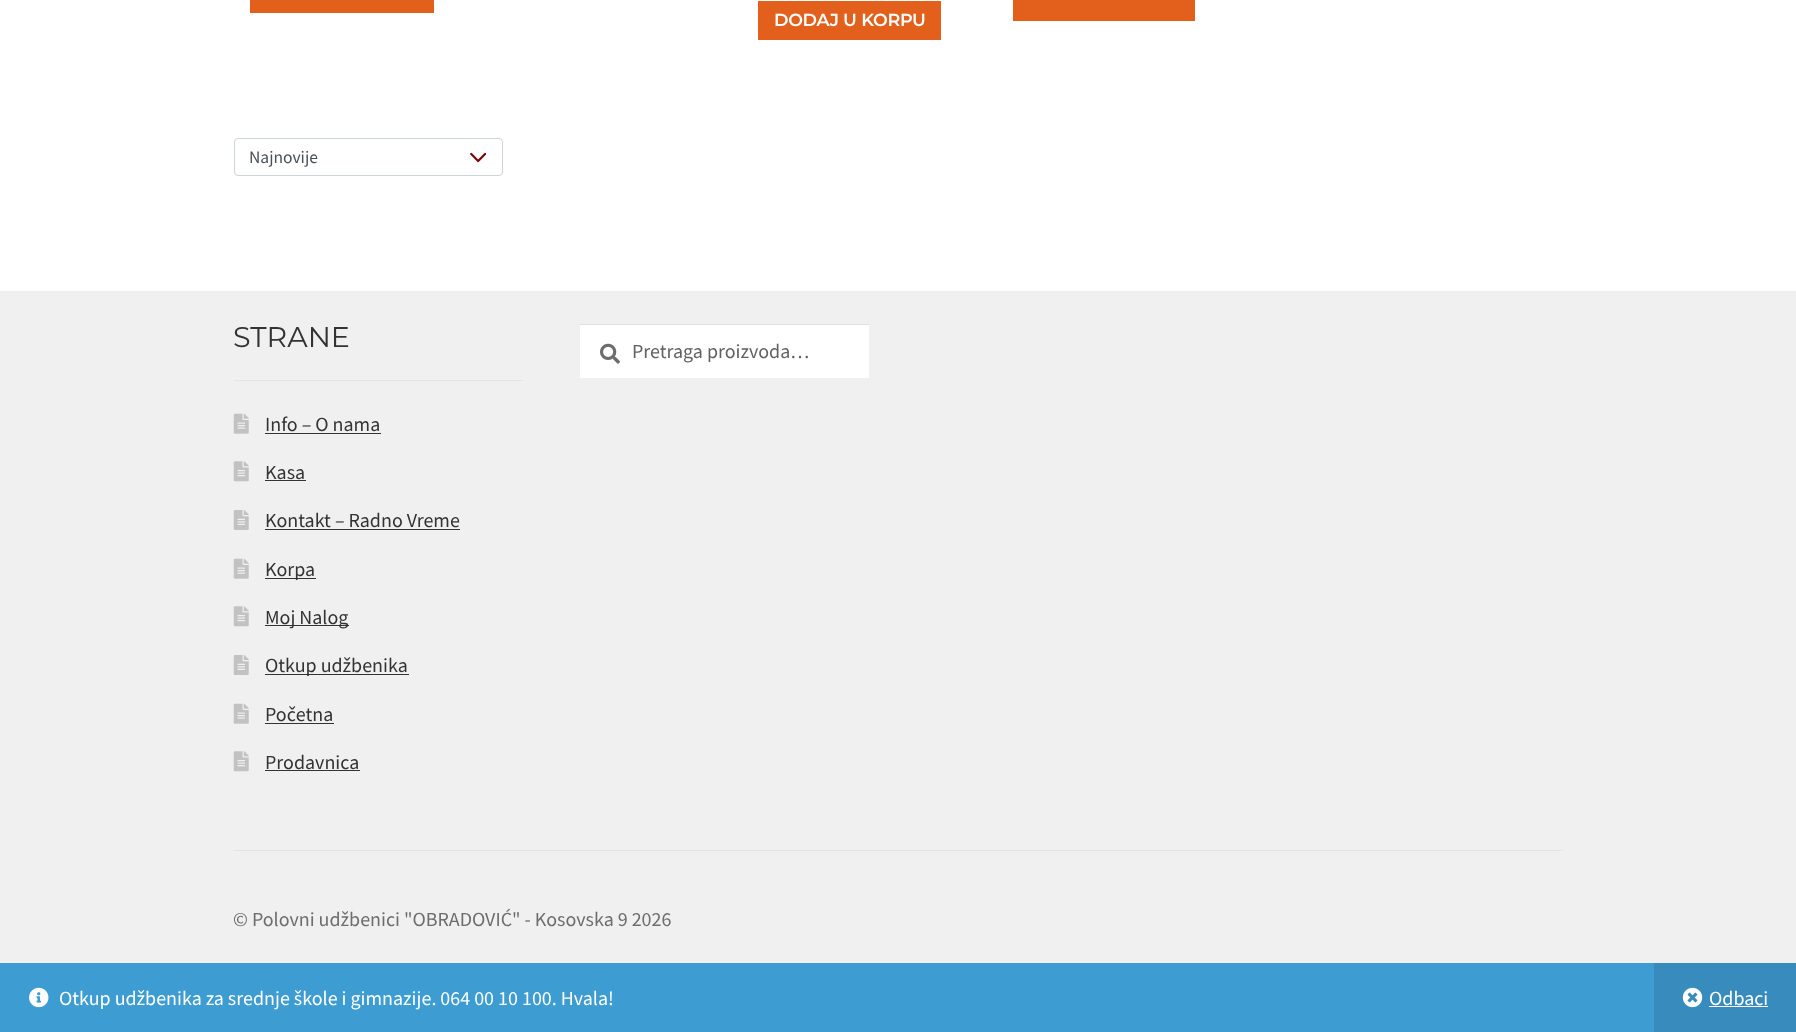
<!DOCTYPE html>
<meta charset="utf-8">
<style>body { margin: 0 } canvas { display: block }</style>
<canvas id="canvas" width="1796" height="1032"></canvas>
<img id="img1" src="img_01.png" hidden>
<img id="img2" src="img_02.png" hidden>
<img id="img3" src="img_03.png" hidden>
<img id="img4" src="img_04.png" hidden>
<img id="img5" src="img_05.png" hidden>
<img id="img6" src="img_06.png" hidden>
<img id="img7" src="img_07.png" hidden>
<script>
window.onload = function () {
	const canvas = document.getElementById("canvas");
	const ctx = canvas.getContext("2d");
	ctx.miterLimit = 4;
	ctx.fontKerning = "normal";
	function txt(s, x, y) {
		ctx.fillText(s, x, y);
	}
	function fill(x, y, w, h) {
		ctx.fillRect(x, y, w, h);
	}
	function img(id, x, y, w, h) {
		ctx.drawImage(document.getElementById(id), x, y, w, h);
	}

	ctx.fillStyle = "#FFFFFF";
	fill(0, 0, 1796, 1032);
	ctx.fillStyle = "#E2601B";
	fill(250, 0, 184, 13);
	fill(758, 1, 183, 39);
	fill(1013, 0, 182, 21);
	img("img1", 470, 152, 16, 11);
	ctx.beginPath();
	ctx.roundRect(234.5, 138.5, 268, 37, 3.5);
	ctx.strokeStyle = "#CED4DA";
	ctx.stroke();
	ctx.fillStyle = "#F0F0F0";
	fill(0, 291, 1796, 672);
	ctx.fillStyle = "#E4E4E4";
	fill(234, 850, 1329, 1);
	fill(234, 380, 289, 1);
	img("img2", 233, 413, 16, 21);
	ctx.fillStyle = "#333333";
	fill(265, 433, 116, 1);
	img("img3", 233, 461, 16, 21);
	fill(265, 480, 41, 1);
	img("img4", 233, 510, 16, 20);
	fill(265, 529, 195, 1);
	img("img2", 233, 558, 16, 21);
	fill(265, 578, 51, 1);
	img("img3", 233, 606, 16, 21);
	fill(265, 625, 84, 1);
	img("img4", 233, 655, 16, 20);
	fill(265, 674, 144, 1);
	img("img2", 233, 703, 16, 21);
	fill(265, 723, 69, 1);
	img("img3", 233, 751, 16, 21);
	fill(265, 770, 95, 1);
	ctx.fillStyle = "#FFFFFF";
	fill(580, 325, 289, 53);
	img("img5", 600, 343, 20, 21);
	ctx.fillStyle = "#DFDFDF";
	fill(580, 324, 289, 1);
	ctx.fillStyle = "#3D9CD2";
	fill(0, 963, 1654, 69);
	img("img6", 29, 987, 20, 21);
	ctx.fillStyle = "#378CBD";
	fill(1654, 963, 142, 69);
	img("img7", 1682, 987, 21, 21);
	ctx.fillStyle = "#FFFFFF";
	fill(1709, 1006, 59, 1);
	ctx.letterSpacing = "-0.3px";
	ctx.font = "600 17.5px Montserrat";
	txt("DODAJ U KORPU", 774, 26);
	ctx.letterSpacing = "0px";
	ctx.font = "17.5px Source Sans Pro";
	ctx.fillStyle = "#495057";
	txt("Najnovije", 249, 163);
	ctx.font = "28.5px Montserrat";
	ctx.fillStyle = "#333333";
	txt("STRANE", 233, 347);
	ctx.font = "20px Source Sans Pro";
	txt("Info – O nama", 265, 431);
	txt("Kasa", 265, 479);
	txt("Kontakt – Radno Vreme", 265, 527);
	txt("Korpa", 265, 576);
	txt("Moj Nalog", 265, 624);
	txt("Otkup udžbenika", 265, 672);
	txt("Početna", 265, 721);
	txt("Prodavnica", 265, 769);
	ctx.fillStyle = "#616161";
	txt("Pretraga proizvoda…", 632, 358);
	ctx.fillStyle = "#6D6D6D";
	txt("© Polovni udžbenici \"OBRADOVIĆ\" - Kosovska 9 2026", 233, 926);
	ctx.fillStyle = "#FFFFFF";
	txt("Otkup udžbenika za srednje škole i gimnazije. 064 00 10 100. Hvala!", 59, 1005);
	txt("Odbaci", 1709, 1005);
};
</script>
